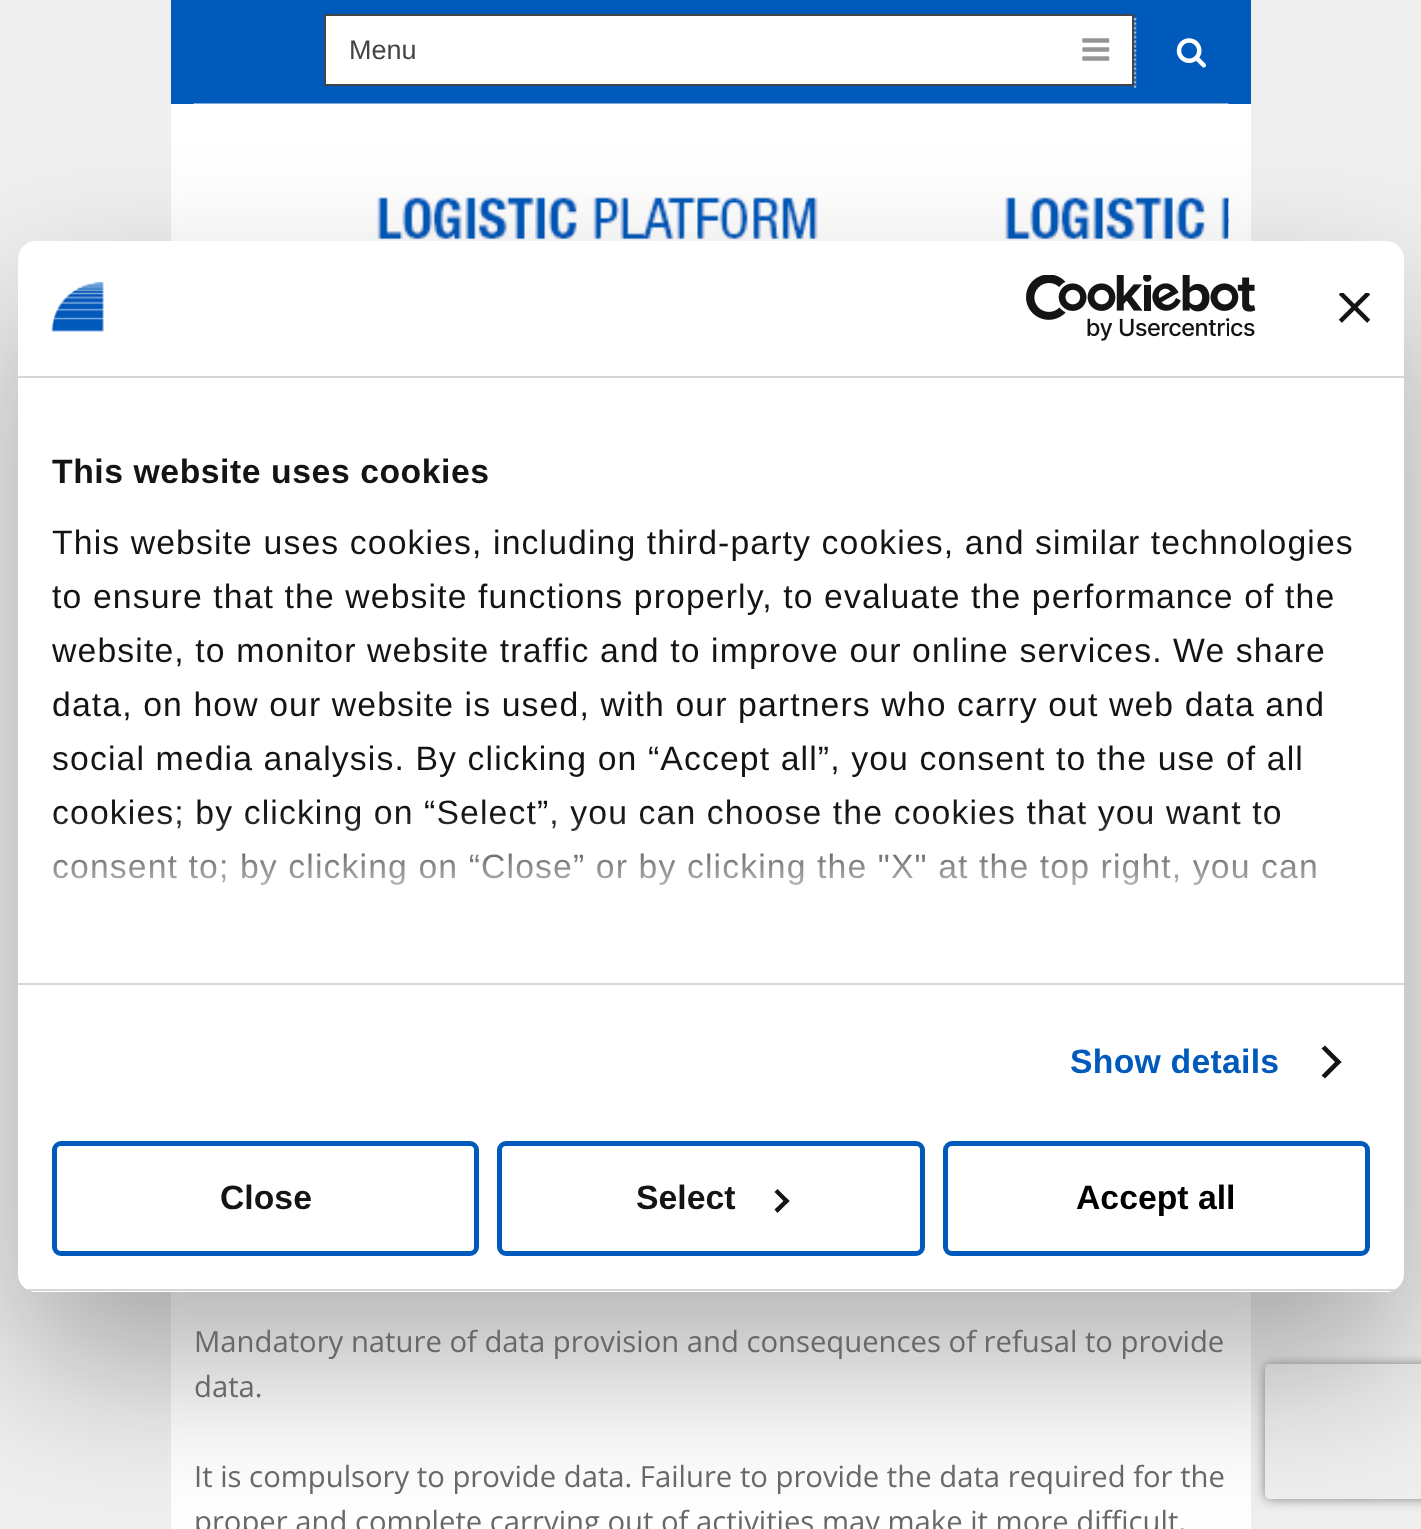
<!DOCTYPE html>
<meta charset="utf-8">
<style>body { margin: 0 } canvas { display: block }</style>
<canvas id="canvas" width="1421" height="1529"></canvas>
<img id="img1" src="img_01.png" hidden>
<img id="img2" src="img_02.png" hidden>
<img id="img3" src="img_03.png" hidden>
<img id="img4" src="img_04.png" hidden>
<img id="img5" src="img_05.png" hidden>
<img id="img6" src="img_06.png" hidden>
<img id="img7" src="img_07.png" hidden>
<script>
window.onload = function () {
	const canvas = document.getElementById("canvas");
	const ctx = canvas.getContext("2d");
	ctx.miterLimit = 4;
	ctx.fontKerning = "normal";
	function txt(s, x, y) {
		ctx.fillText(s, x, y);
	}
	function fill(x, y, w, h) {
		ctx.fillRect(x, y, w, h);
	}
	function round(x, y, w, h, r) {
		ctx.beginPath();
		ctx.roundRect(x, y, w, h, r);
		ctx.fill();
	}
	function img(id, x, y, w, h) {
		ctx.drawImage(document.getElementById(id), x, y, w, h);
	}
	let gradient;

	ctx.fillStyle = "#EFEFEF";
	fill(0, 0, 1421, 1529);
	ctx.fillStyle = "#FFFFFF";
	fill(171, 104, 1080, 1425);
	ctx.fillStyle = "#005ABB";
	fill(171, 0, 1080, 104);
	ctx.fillStyle = "#FFFFFF";
	ctx.beginPath();
	ctx.rect(325, 15, 808, 70);
	ctx.fill();
	ctx.strokeStyle = "#444444";
	ctx.lineWidth = 2;
	ctx.stroke();
	img("img1", 1082, 38, 28, 23);
	img("img2", 1134, 18, 3, 70);
	img("img3", 1176, 38, 30, 30);
	img("img4", 193, 103, 1036, 138);
	ctx.fillStyle = "rgba(0, 0, 0, 0.3)";
	ctx.filter = "blur(76.5px)";
	ctx.beginPath();
	ctx.roundRect(18, 313, 1386, 1051, 18);
	ctx.fill();
	ctx.filter = "none";
	ctx.fillStyle = "#FFFFFF";
	round(18, 241, 1386, 1051, 18);
	ctx.fillStyle = "#D6D6D6";
	fill(18, 376, 1386, 2);
	img("img5", 51, 282, 53, 51);
	img("img6", 1026, 275, 230, 66);
	img("img7", 1339, 293, 31, 30);
	fill(18, 983, 1386, 2);
	ctx.fillStyle = "#141414";
	ctx.beginPath();
	ctx.moveTo(1325, 1045.5);
	ctx.lineTo(1341.5, 1062);
	ctx.lineTo(1338, 1065);
	ctx.lineTo(1321.5, 1048.5);
	ctx.closePath();
	ctx.fill();
	ctx.beginPath();
	ctx.moveTo(1338, 1059);
	ctx.lineTo(1341.5, 1062);
	ctx.lineTo(1325, 1078.5);
	ctx.lineTo(1321.5, 1075.5);
	ctx.closePath();
	ctx.fill();
	ctx.save();
	ctx.beginPath();
	ctx.roundRect(18, 241, 1386, 1051, 18);
	ctx.clip();
	ctx.fillStyle = "#D6D6D6";
	fill(18, 1289, 1386, 2);
	ctx.restore();
	ctx.beginPath();
	ctx.roundRect(54.5, 1143.5, 422, 110, 6.5);
	ctx.strokeStyle = "#005ABB";
	ctx.lineWidth = 5;
	ctx.stroke();
	ctx.beginPath();
	ctx.roundRect(499.5, 1143.5, 423, 110, 6.5);
	ctx.stroke();
	ctx.beginPath();
	ctx.moveTo(777.5, 1189);
	ctx.lineTo(789.5, 1201);
	ctx.lineTo(786.5, 1204);
	ctx.lineTo(774.5, 1192);
	ctx.closePath();
	ctx.fill();
	ctx.beginPath();
	ctx.moveTo(786.5, 1198);
	ctx.lineTo(789.5, 1201);
	ctx.lineTo(777.5, 1213);
	ctx.lineTo(774.5, 1209.5);
	ctx.closePath();
	ctx.fill();
	ctx.beginPath();
	ctx.roundRect(945.5, 1143.5, 422, 110, 6.5);
	ctx.stroke();
	ctx.save();
	ctx.beginPath();
	ctx.moveTo(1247, 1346);
	ctx.lineTo(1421, 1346);
	ctx.lineTo(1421, 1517);
	ctx.lineTo(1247, 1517);
	ctx.closePath();
	ctx.moveTo(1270, 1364);
	ctx.lineTo(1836, 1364);
	ctx.bezierCurveTo(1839, 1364, 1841, 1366, 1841, 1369);
	ctx.lineTo(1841, 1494);
	ctx.bezierCurveTo(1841, 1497, 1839, 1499, 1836, 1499);
	ctx.lineTo(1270, 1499);
	ctx.bezierCurveTo(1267, 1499, 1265, 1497, 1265, 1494);
	ctx.lineTo(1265, 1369);
	ctx.bezierCurveTo(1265, 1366, 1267, 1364, 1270, 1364);
	ctx.closePath();
	ctx.clip("evenodd");
	ctx.fillStyle = "#808080";
	ctx.filter = "blur(5.5px)";
	ctx.beginPath();
	ctx.roundRect(1265, 1364, 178, 135, 5);
	ctx.fill();
	ctx.filter = "none";
	ctx.restore();
	ctx.font = "27px Liberation Sans";
	ctx.fillStyle = "#444444";
	txt("Menu", 349, 59);
	ctx.font = "29.25px Open Sans";
	ctx.fillStyle = "#686868";
	txt("Mandatory nature of data provision and consequences of refusal to provide", 194, 1352);
	txt("data.", 194, 1397);
	txt("It is compulsory to provide data. Failure to provide the data required for the", 194, 1487);
	txt("proper and complete carrying out of activities may make it more difficult,", 194, 1532);
	ctx.letterSpacing = "0.55px";
	ctx.font = "bold 33.75px Liberation Sans";
	ctx.fillStyle = "#141414";
	txt("This website uses cookies", 52, 483);
	ctx.letterSpacing = "1.12px";
	ctx.font = "33.75px Liberation Sans";
	txt("This website uses cookies, including third-party cookies, and similar technologies", 52, 554);
	txt("to ensure that the website functions properly, to evaluate the performance of the", 52, 608);
	txt("website, to monitor website traffic and to improve our online services. We share", 52, 662);
	txt("data, on how our website is used, with our partners who carry out web data and", 52, 716);
	txt("social media analysis. By clicking on “Accept all”, you consent to the use of all", 52, 770);
	txt("cookies; by clicking on “Select”, you can choose the cookies that you want to", 52, 824);
	txt("consent to; by clicking on “Close” or by clicking the \"X\" at the top right, you can", 52, 878);
	gradient = ctx.createLinearGradient(696, 982, 696, 813);
	gradient.addColorStop(0, "#FFFFFF");
	gradient.addColorStop(0.5, "rgba(255, 255, 255, 0.8)");
	gradient.addColorStop(1, "rgba(255, 255, 255, 0)");
	ctx.fillStyle = gradient;
	fill(53, 815, 1263, 70);
	ctx.letterSpacing = "0.25px";
	ctx.font = "bold 33.75px Liberation Sans";
	ctx.fillStyle = "#005ABB";
	txt("Show details", 1070, 1073);
	ctx.letterSpacing = "0px";
	ctx.fillStyle = "#141414";
	txt("Close", 220, 1209);
	txt("Select", 636, 1209);
	ctx.fillStyle = "#000000";
	txt("Accept all", 1076, 1209);
};
</script>
